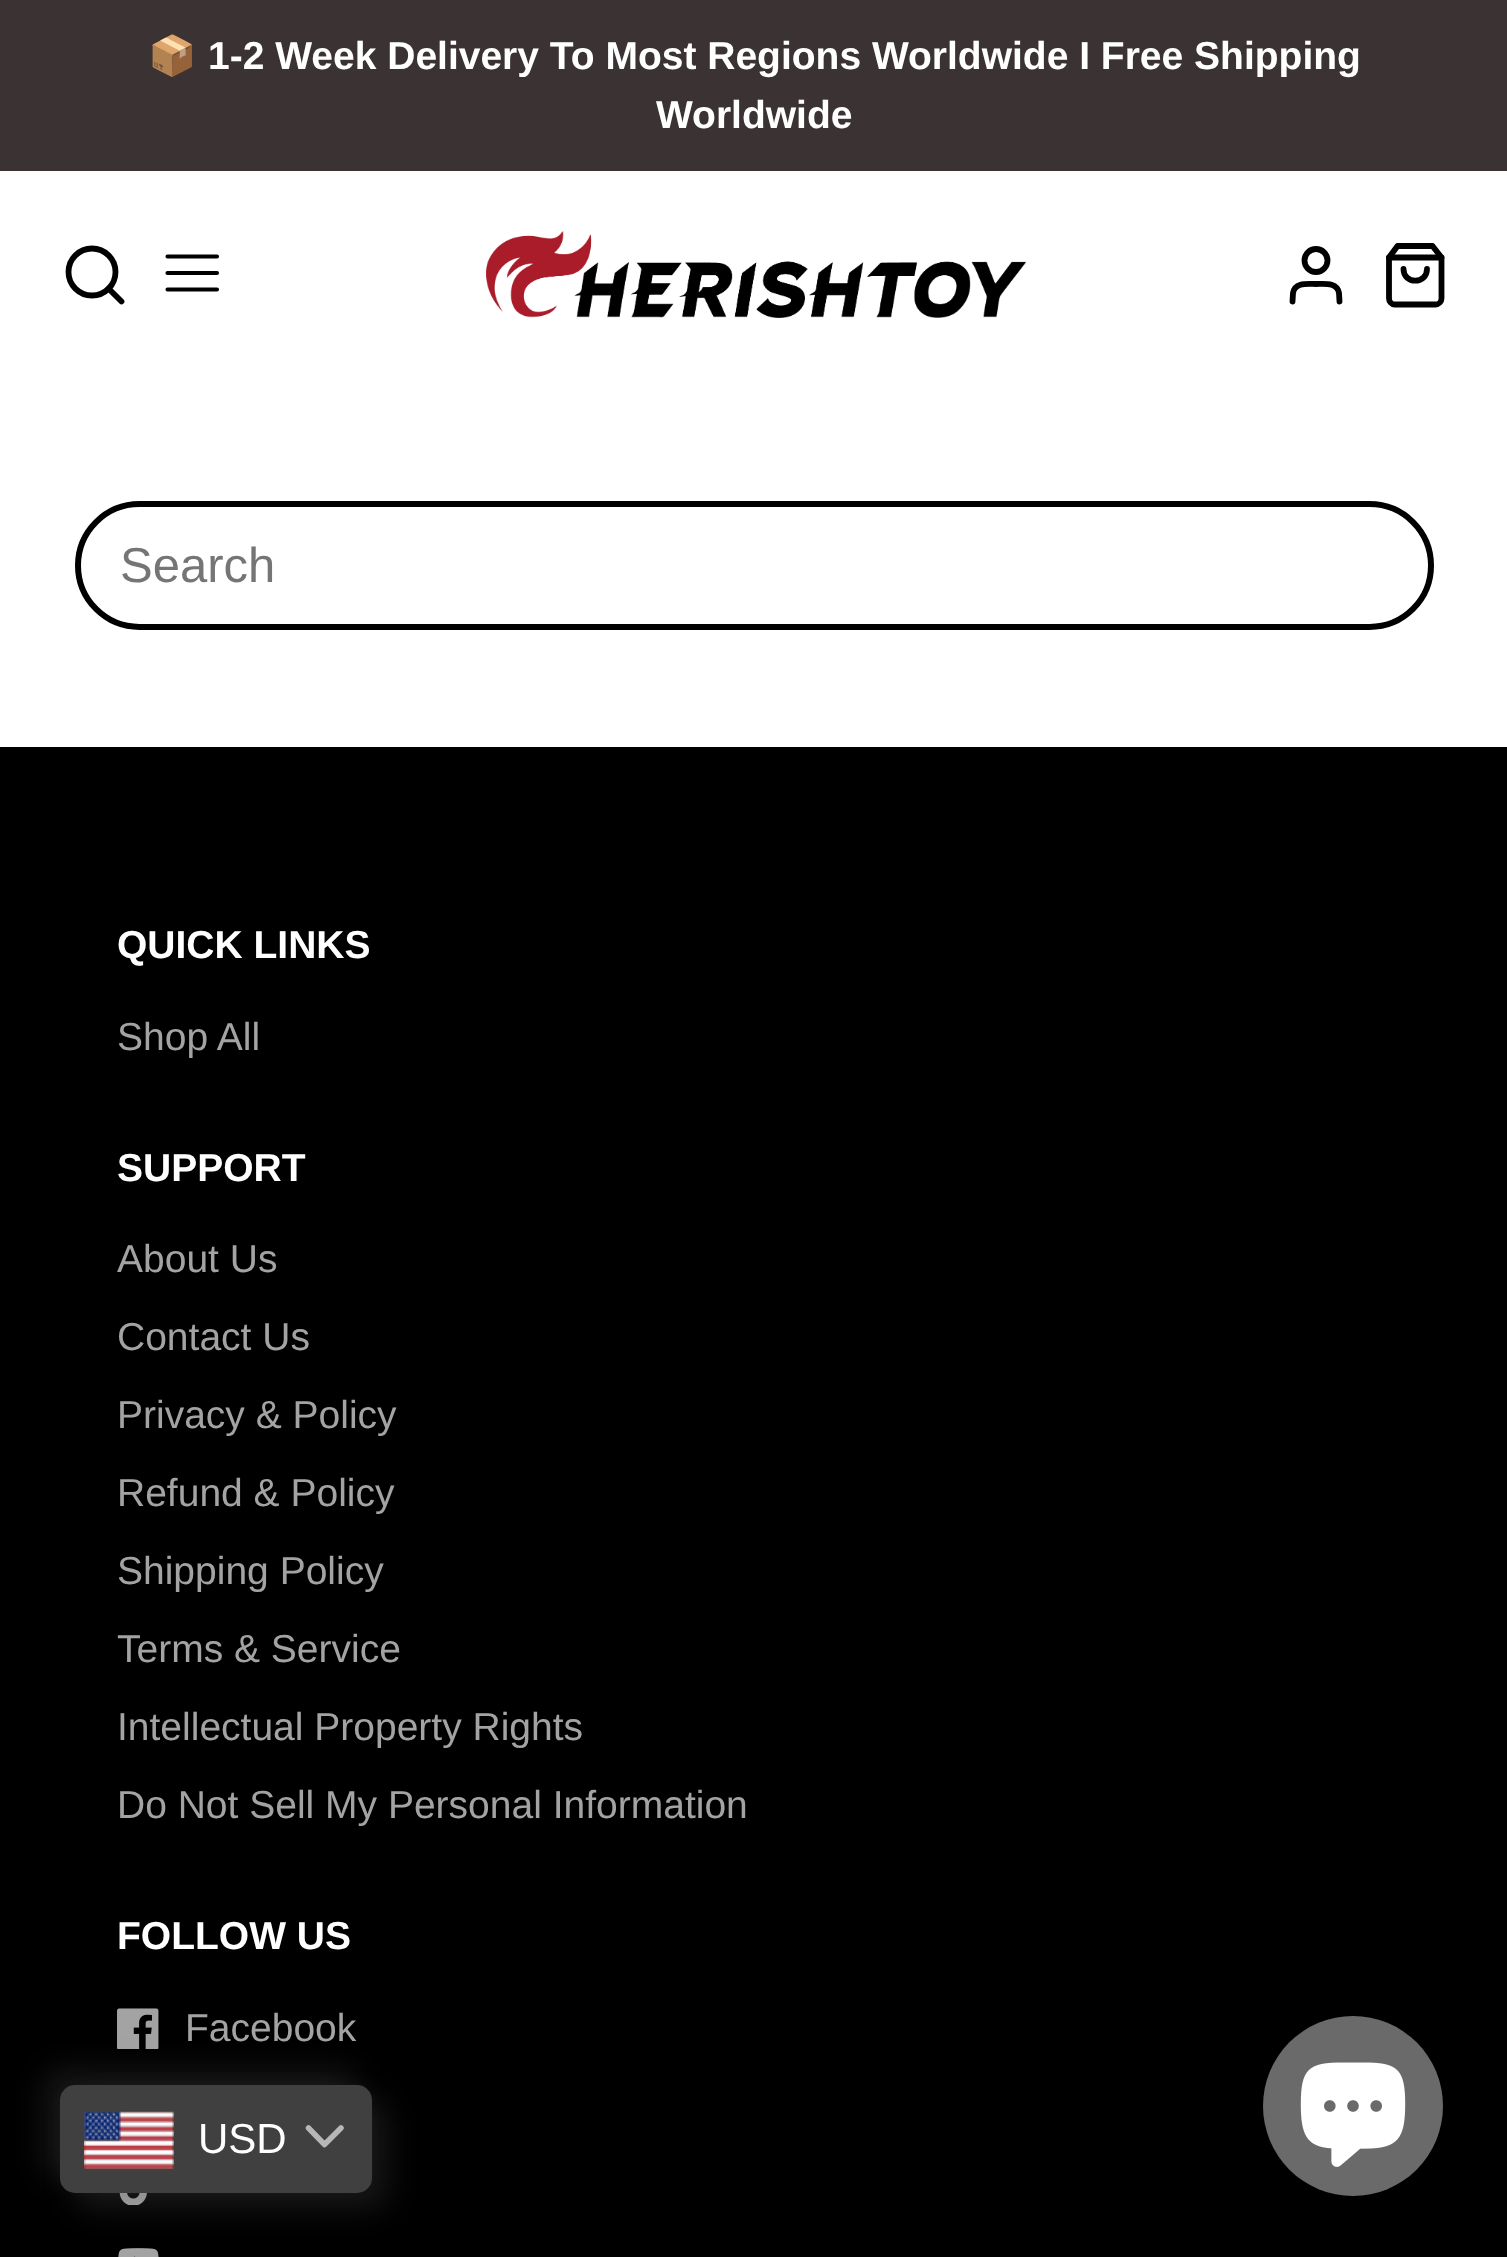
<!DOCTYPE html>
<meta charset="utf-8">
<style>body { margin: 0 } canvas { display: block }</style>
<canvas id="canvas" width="1507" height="2257"></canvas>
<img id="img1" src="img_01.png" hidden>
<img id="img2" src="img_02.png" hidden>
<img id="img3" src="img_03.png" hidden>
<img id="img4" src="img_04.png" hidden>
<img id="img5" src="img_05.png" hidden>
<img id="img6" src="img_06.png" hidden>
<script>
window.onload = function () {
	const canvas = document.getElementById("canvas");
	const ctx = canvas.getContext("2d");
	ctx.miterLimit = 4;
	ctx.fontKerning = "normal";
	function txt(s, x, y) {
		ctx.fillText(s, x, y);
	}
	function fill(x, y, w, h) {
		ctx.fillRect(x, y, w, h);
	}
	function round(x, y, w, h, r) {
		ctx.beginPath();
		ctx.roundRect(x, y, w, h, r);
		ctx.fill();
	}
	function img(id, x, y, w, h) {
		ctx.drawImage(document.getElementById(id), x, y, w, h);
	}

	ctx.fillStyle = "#FFFFFF";
	fill(0, 0, 1507, 2257);
	ctx.fillStyle = "#3B3333";
	fill(0, 0, 1507, 171);
	ctx.beginPath();
	ctx.arc(92, 272, 23.5, 0, Math.PI * 2);
	ctx.strokeStyle = "#000000";
	ctx.lineWidth = 5.8;
	ctx.stroke();
	ctx.beginPath();
	ctx.moveTo(121.5, 301.5);
	ctx.lineTo(108.5, 288.5);
	ctx.lineCap = "round";
	ctx.lineJoin = "round";
	ctx.stroke();
	ctx.beginPath();
	ctx.moveTo(167.5, 273);
	ctx.lineTo(217, 273);
	ctx.moveTo(167.5, 256.5);
	ctx.lineTo(217, 256.5);
	ctx.moveTo(167.5, 289.5);
	ctx.lineTo(217, 289.5);
	ctx.lineWidth = 4.1;
	ctx.stroke();
	img("img1", 486, 231, 540, 87);
	ctx.beginPath();
	ctx.arc(1316, 260.5, 11.5, 0, Math.PI * 2);
	ctx.lineWidth = 5.8;
	ctx.stroke();
	ctx.beginPath();
	ctx.moveTo(1339.5, 301.5);
	ctx.lineTo(1339, 293);
	ctx.bezierCurveTo(1337, 282, 1324.5, 284, 1316, 284);
	ctx.bezierCurveTo(1307.5, 284, 1295, 282, 1293, 293);
	ctx.lineTo(1292.5, 301.5);
	ctx.stroke();
	ctx.beginPath();
	ctx.moveTo(1397.5, 246);
	ctx.lineTo(1389, 257.5);
	ctx.lineTo(1389, 298.5);
	ctx.bezierCurveTo(1389, 301.5, 1391.5, 304.5, 1394.5, 304.5);
	ctx.lineTo(1435.5, 304.5);
	ctx.bezierCurveTo(1439, 304.5, 1441.5, 301.5, 1441.5, 298.5);
	ctx.lineTo(1441.5, 257.5);
	ctx.lineTo(1432.5, 246);
	ctx.closePath();
	ctx.stroke();
	ctx.beginPath();
	ctx.moveTo(1389, 257.5);
	ctx.lineTo(1441.5, 257.5);
	ctx.moveTo(1427, 269);
	ctx.bezierCurveTo(1427, 284.5, 1403.5, 284.5, 1403.5, 269);
	ctx.stroke();
	ctx.beginPath();
	ctx.roundRect(78, 504, 1353, 123, 61.5);
	ctx.lineWidth = 6;
	ctx.lineJoin = "miter";
	ctx.stroke();
	ctx.fillStyle = "#000000";
	fill(0, 747, 1507, 1510);
	img("img2", 117, 2008, 42, 41);
	img("img3", 119, 2193, 28, 12);
	img("img4", 118, 2248, 41, 9);
	ctx.fillStyle = "rgba(97, 97, 97, 0.24)";
	ctx.filter = "blur(15px)";
	ctx.beginPath();
	ctx.roundRect(45, 2070, 312, 108, 15);
	ctx.fill();
	ctx.filter = "none";
	ctx.filter = "blur(15px)";
	ctx.beginPath();
	ctx.roundRect(75, 2100, 312, 108, 15);
	ctx.fill();
	ctx.filter = "none";
	ctx.fillStyle = "#404040";
	round(60, 2085, 312, 108, 15);
	img("img5", 84, 2111, 90, 58);
	ctx.beginPath();
	ctx.moveTo(308.5, 2128);
	ctx.lineTo(324.5, 2144.5);
	ctx.lineTo(341, 2128);
	ctx.strokeStyle = "#B7B7B7";
	ctx.lineWidth = 5.5;
	ctx.lineJoin = "round";
	ctx.stroke();
	ctx.fillStyle = "#6A6A6A";
	ctx.beginPath();
	ctx.arc(1353, 2106, 90, 0, Math.PI * 2);
	ctx.fill();
	img("img6", 1300, 2062, 106, 105);
	ctx.font = "bold 39px Noto Color Emoji";
	ctx.fillStyle = "#FFFFFF";
	txt("📦", 148, 69);
	ctx.font = "bold 39px Arimo";
	txt("1-2 Week Delivery To Most Regions Worldwide I Free Shipping", 208, 69);
	txt("Worldwide", 656, 128);
	ctx.font = "49px Liberation Sans";
	ctx.fillStyle = "#757575";
	txt("Search", 120, 582);
	ctx.font = "bold 39px Arimo";
	ctx.fillStyle = "#FFFFFF";
	txt("QUICK LINKS", 117, 958);
	ctx.font = "39px Arimo";
	ctx.fillStyle = "#A3A3A3";
	txt("Shop All", 117, 1050);
	ctx.font = "bold 39px Arimo";
	ctx.fillStyle = "#FFFFFF";
	txt("SUPPORT", 117, 1181);
	ctx.font = "39px Arimo";
	ctx.fillStyle = "#A3A3A3";
	txt("About Us", 117, 1272);
	txt("Contact Us", 117, 1350);
	txt("Privacy & Policy", 117, 1428);
	txt("Refund & Policy", 117, 1506);
	txt("Shipping Policy", 117, 1584);
	txt("Terms & Service", 117, 1662);
	txt("Intellectual Property Rights", 117, 1740);
	txt("Do Not Sell My Personal Information", 117, 1818);
	ctx.font = "bold 39px Arimo";
	ctx.fillStyle = "#FFFFFF";
	txt("FOLLOW US", 117, 1949);
	ctx.font = "39px Arimo";
	ctx.fillStyle = "#A3A3A3";
	txt("Facebook", 185, 2041);
	ctx.font = "42px Arimo";
	ctx.fillStyle = "#FFFFFF";
	txt("USD", 198, 2153);
};
</script>
